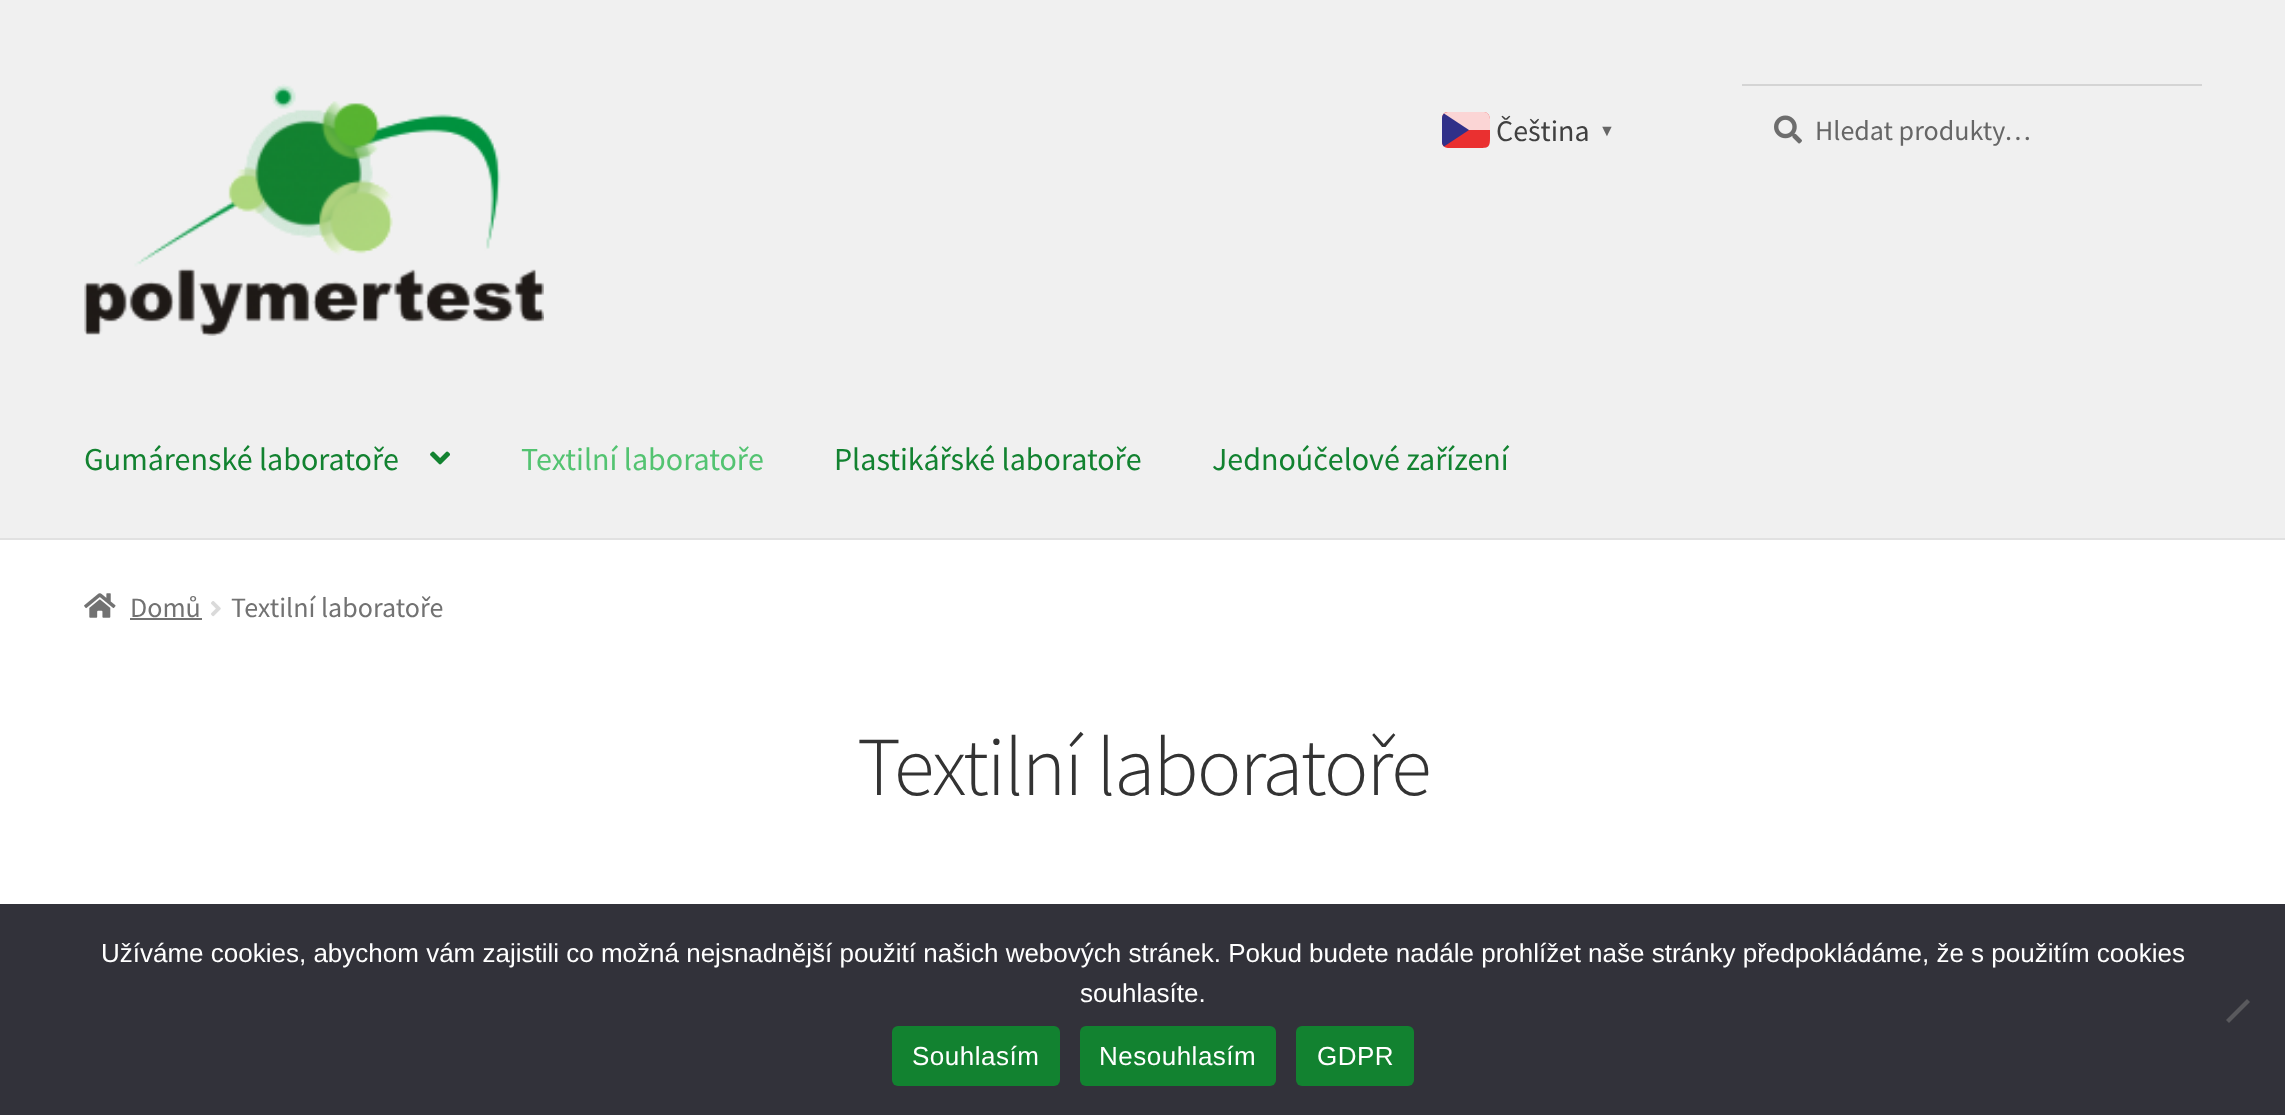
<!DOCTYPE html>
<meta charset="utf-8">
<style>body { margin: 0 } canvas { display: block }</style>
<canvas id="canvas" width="2285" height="1115"></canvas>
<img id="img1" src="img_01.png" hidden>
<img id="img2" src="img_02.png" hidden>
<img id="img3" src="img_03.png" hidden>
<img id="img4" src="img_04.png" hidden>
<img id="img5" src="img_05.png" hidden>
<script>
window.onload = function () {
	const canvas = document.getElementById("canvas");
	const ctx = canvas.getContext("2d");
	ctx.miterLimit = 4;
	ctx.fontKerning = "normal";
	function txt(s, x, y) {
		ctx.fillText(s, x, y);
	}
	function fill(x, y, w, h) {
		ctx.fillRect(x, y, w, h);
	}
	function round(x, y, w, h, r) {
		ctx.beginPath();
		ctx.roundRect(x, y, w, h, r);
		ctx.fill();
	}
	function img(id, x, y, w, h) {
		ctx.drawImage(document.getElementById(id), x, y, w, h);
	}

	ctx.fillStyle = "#FFFFFF";
	fill(0, 0, 2285, 1115);
	ctx.fillStyle = "#F0F0F0";
	fill(0, 0, 2285, 538);
	ctx.fillStyle = "#E1E1E1";
	fill(0, 538, 2285, 2);
	img("img1", 84, 84, 460, 252);
	ctx.save();
	ctx.beginPath();
	ctx.rect(1442, 112, 48, 36);
	ctx.clip();
	ctx.fillStyle = "#EA3030";
	ctx.beginPath();
	ctx.moveTo(1448, 112);
	ctx.bezierCurveTo(1439, 112, 1442, 125, 1442, 130);
	ctx.bezierCurveTo(1442, 135, 1439, 148, 1448, 148);
	ctx.lineTo(1478, 148);
	ctx.bezierCurveTo(1488, 148, 1490, 148, 1490, 138);
	ctx.lineTo(1490, 126);
	ctx.bezierCurveTo(1490, 121, 1491, 112, 1484, 112);
	ctx.closePath();
	ctx.fill();
	ctx.fillStyle = "rgba(255, 255, 255, 0.8)";
	ctx.beginPath();
	ctx.moveTo(1448, 112);
	ctx.bezierCurveTo(1440, 112, 1442, 125, 1442, 130);
	ctx.lineTo(1490, 130);
	ctx.bezierCurveTo(1490, 125, 1492, 112, 1484, 112);
	ctx.closePath();
	ctx.fill();
	ctx.restore();
	ctx.fillStyle = "#303089";
	ctx.beginPath();
	ctx.moveTo(1442, 118);
	ctx.bezierCurveTo(1442, 116, 1443, 114.5, 1444, 113.5);
	ctx.lineTo(1469, 130);
	ctx.lineTo(1444, 146.5);
	ctx.bezierCurveTo(1443, 145.5, 1442, 144, 1442, 142);
	ctx.closePath();
	ctx.fill();
	img("img2", 1774, 115, 28, 29);
	ctx.fillStyle = "#D4D4D4";
	fill(1742, 84, 460, 2);
	img("img3", 430, 451, 20, 14);
	img("img4", 84, 593, 32, 25);
	ctx.fillStyle = "#727272";
	fill(130, 618, 72, 2);
	img("img5", 211, 601, 10, 16);
	ctx.fillStyle = "#32323A";
	fill(0, 904, 2285, 211);
	ctx.fillStyle = "#59595D";
	ctx.beginPath();
	ctx.moveTo(2247, 999);
	ctx.lineTo(2250, 1002);
	ctx.lineTo(2229, 1023);
	ctx.lineTo(2226, 1020);
	ctx.closePath();
	ctx.fill();
	ctx.fillStyle = "#128230";
	round(892, 1026, 168, 60, 6);
	round(1080, 1026, 196, 60, 6);
	round(1296, 1026, 118, 60, 6);
	ctx.font = "30px Source Sans Pro";
	ctx.fillStyle = "#404040";
	txt("Čeština", 1496, 141);
	ctx.font = "bold 16px Liberation Sans";
	ctx.fillStyle = "#666666";
	txt("▼", 1599, 136);
	ctx.font = "28px Source Sans Pro";
	txt("Hledat produkty…", 1815, 140);
	ctx.font = "32px Source Sans Pro";
	ctx.fillStyle = "#128230";
	txt("Gumárenské laboratoře", 84, 470);
	ctx.fillStyle = "#53C371";
	txt("Textilní laboratoře", 521, 470);
	ctx.fillStyle = "#128230";
	txt("Plastikářské laboratoře", 834, 470);
	txt("Jednoúčelové zařízení", 1212, 470);
	ctx.font = "28px Source Sans Pro";
	ctx.fillStyle = "#727272";
	txt("Domů", 130, 617);
	txt("Textilní laboratoře", 231, 617);
	ctx.letterSpacing = "-2px";
	ctx.font = "300 83.75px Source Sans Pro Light";
	ctx.fillStyle = "#333333";
	txt("Textilní laboratoře", 857, 795);
	ctx.letterSpacing = "0px";
	ctx.font = "26px Liberation Sans";
	ctx.fillStyle = "#FFFFFF";
	txt("Užíváme cookies, abychom vám zajistili co možná nejsnadnější použití našich webových stránek. Pokud budete nadále prohlížet naše stránky předpokládáme, že s použitím cookies", 101, 962);
	txt("souhlasíte.", 1080, 1002);
	ctx.letterSpacing = "0.5px";
	txt("Souhlasím", 912, 1065);
	txt("Nesouhlasím", 1099, 1065);
	txt("GDPR", 1317, 1065);
};
</script>
